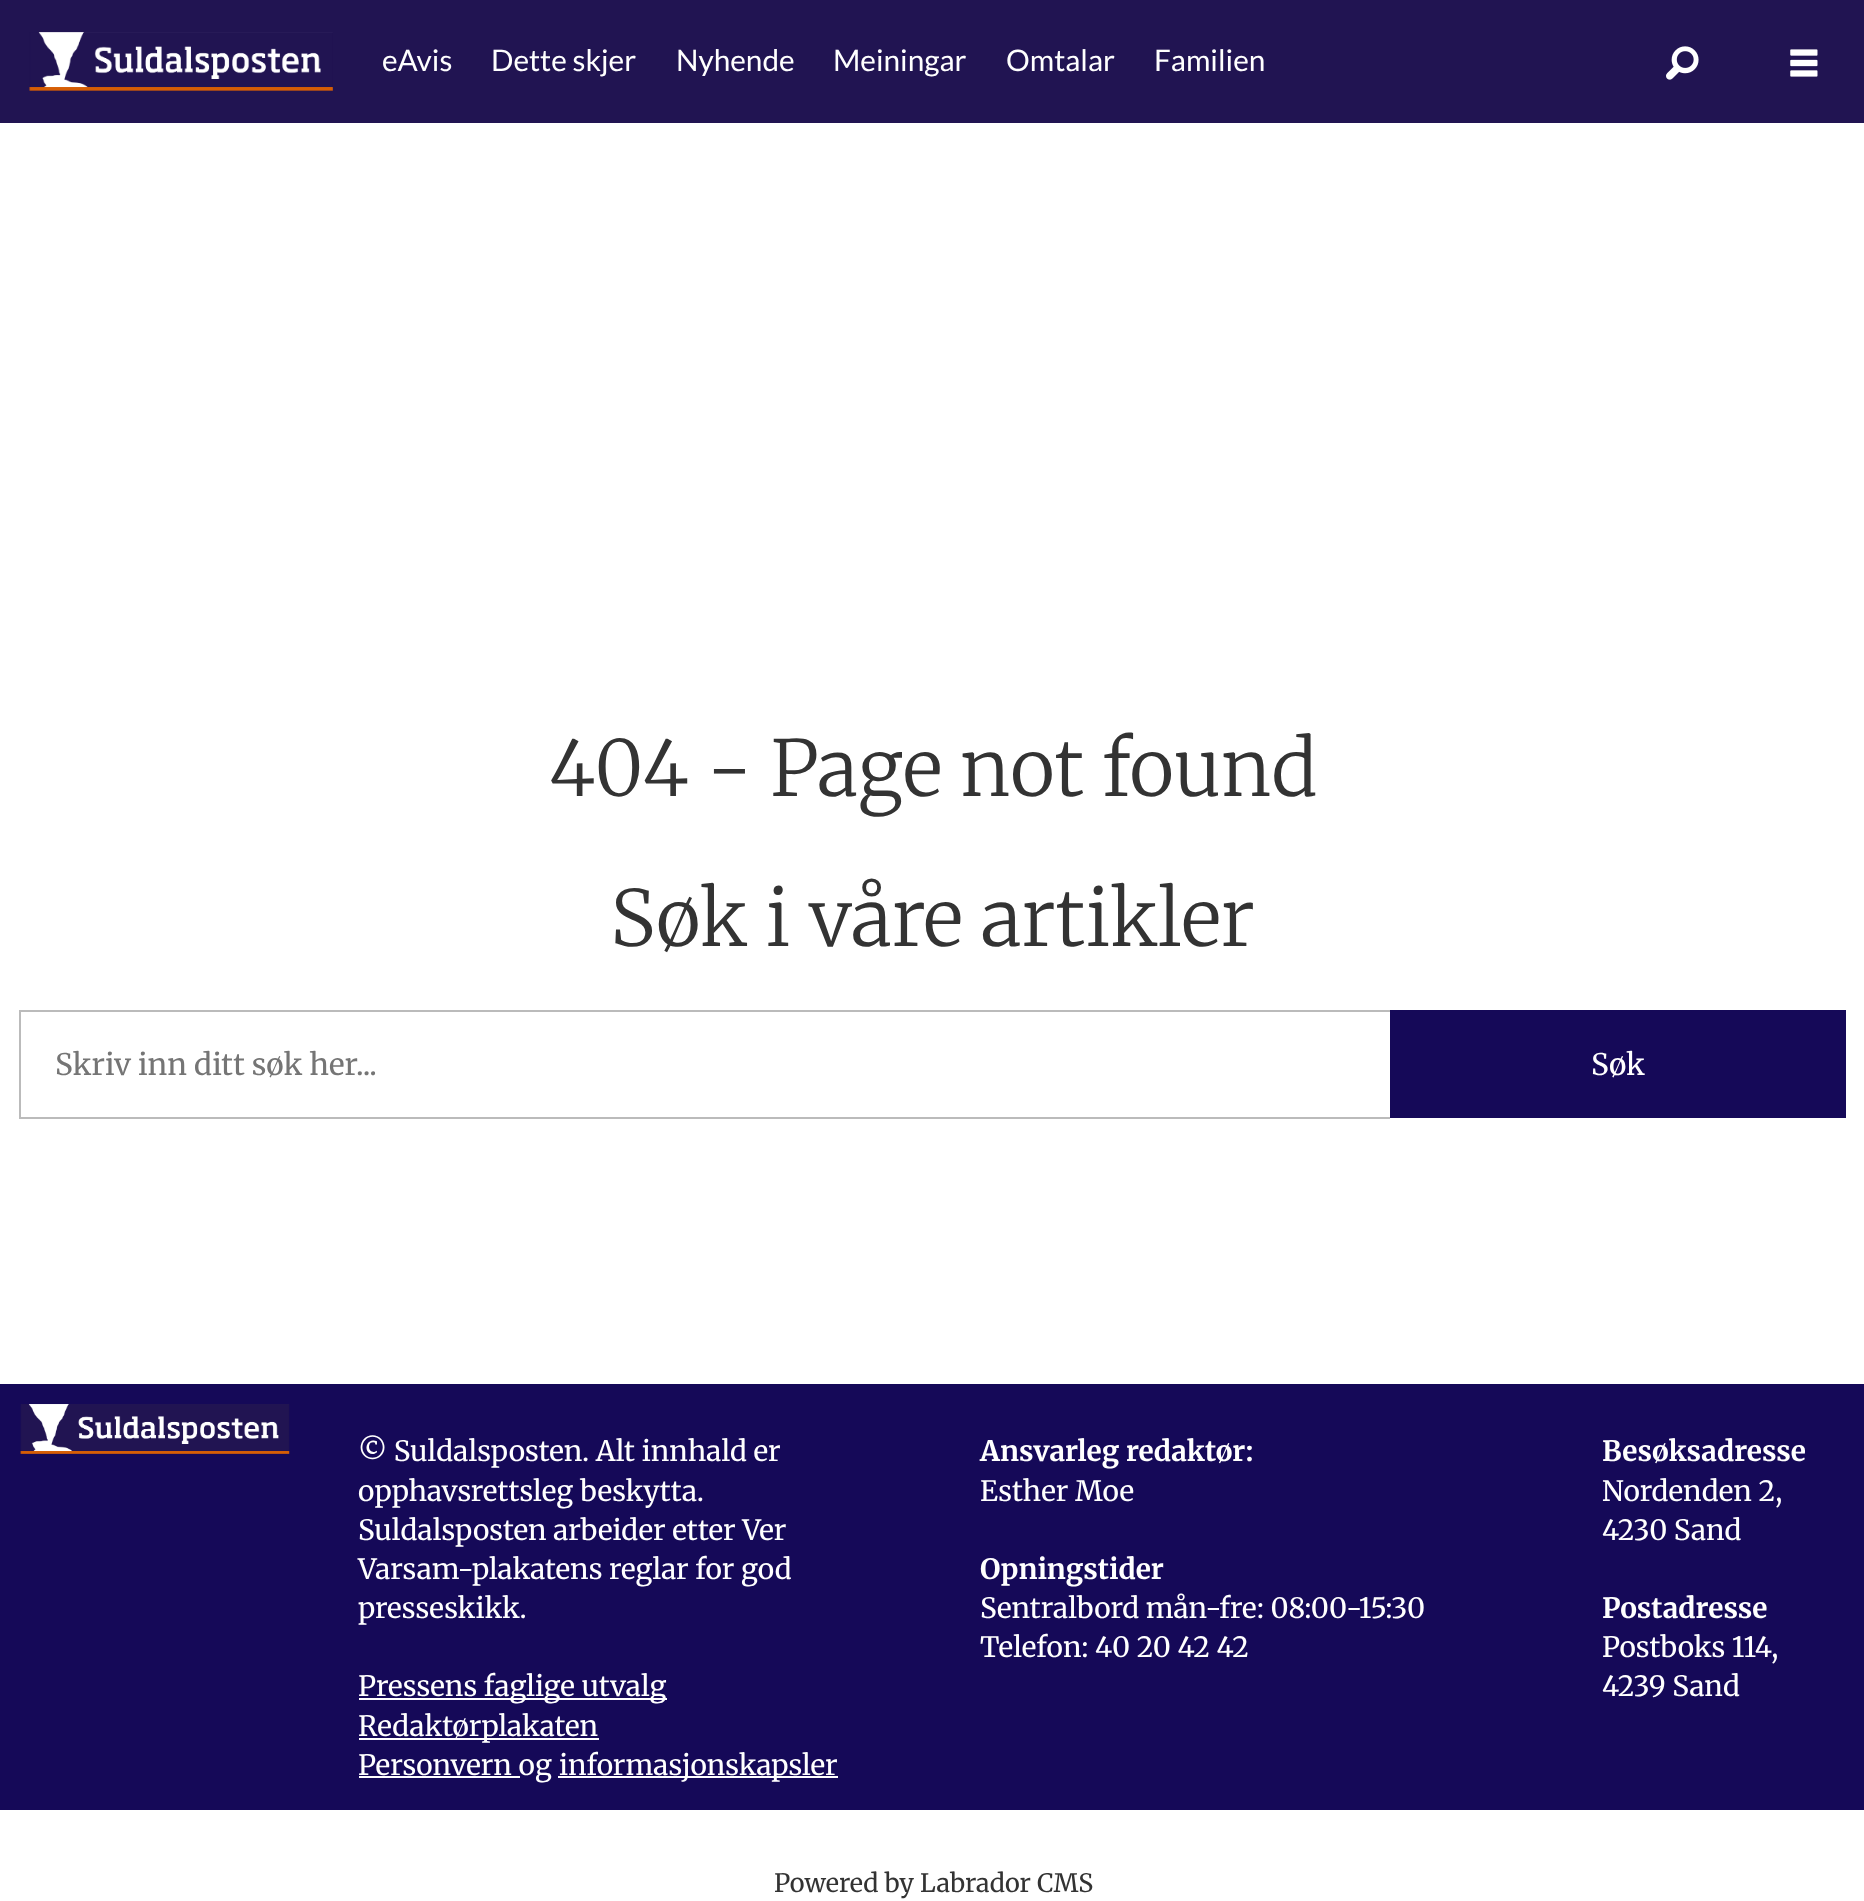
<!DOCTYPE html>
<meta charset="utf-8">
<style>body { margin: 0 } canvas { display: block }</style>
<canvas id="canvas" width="1864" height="1901"></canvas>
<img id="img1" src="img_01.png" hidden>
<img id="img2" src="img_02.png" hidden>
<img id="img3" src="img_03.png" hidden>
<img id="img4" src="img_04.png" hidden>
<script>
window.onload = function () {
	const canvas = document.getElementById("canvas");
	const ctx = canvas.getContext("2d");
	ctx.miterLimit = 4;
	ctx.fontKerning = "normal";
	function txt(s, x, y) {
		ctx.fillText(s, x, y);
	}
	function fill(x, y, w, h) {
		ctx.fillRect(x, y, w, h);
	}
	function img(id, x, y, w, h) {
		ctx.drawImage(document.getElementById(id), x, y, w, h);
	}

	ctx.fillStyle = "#FFFFFF";
	fill(0, 0, 1864, 1901);
	ctx.fillStyle = "#211452";
	fill(0, 0, 1864, 123);
	img("img1", 29, 32, 304, 59);
	img("img2", 1666, 46, 33, 34);
	img("img3", 1790, 49, 28, 28);
	ctx.fillStyle = "#BBBBBB";
	fill(19, 1010, 1371, 2);
	fill(19, 1117, 1371, 2);
	fill(19, 1010, 2, 108);
	ctx.fillStyle = "#150958";
	fill(1390, 1010, 456, 108);
	fill(0, 1384, 1864, 426);
	img("img4", 20, 1404, 270, 50);
	ctx.fillStyle = "#FFFFFF";
	fill(359, 1698, 308, 2);
	fill(359, 1738, 240, 2);
	fill(359, 1776, 161, 2);
	fill(558, 1776, 280, 2);
	ctx.font = "29.75px Lato";
	txt("eAvis", 382, 71);
	txt("Dette skjer", 491, 71);
	txt("Nyhende", 676, 71);
	txt("Meiningar", 833, 71);
	txt("Omtalar", 1006, 71);
	txt("Familien", 1154, 71);
	ctx.font = "300 77px Merriweather";
	ctx.fillStyle = "#333333";
	txt("404 - Page not found", 549, 796);
	ctx.font = "300 77.25px Merriweather";
	txt("Søk i våre artikler", 610, 946);
	ctx.font = "29.75px Merriweather";
	ctx.fillStyle = "#757575";
	txt("Skriv inn ditt søk her...", 55, 1075);
	ctx.fillStyle = "#FFFFFF";
	txt("Søk", 1591, 1075);
	ctx.font = "28px Merriweather";
	txt("© Suldalsposten. Alt innhald er", 358, 1461);
	txt("opphavsrettsleg beskytta.", 358, 1501);
	txt("Suldalsposten arbeider etter Ver", 358, 1540);
	txt("Varsam-plakatens reglar for god", 358, 1579);
	txt("presseskikk.", 358, 1618);
	txt("Pressens faglige utvalg", 358, 1696);
	txt("Redaktørplakaten", 358, 1736);
	txt("Personvern og", 358, 1775);
	txt("informasjonskapsler", 559, 1775);
	ctx.font = "bold 28px Merriweather";
	txt("Ansvarleg redaktør:", 980, 1461);
	ctx.font = "28px Merriweather";
	txt("Esther Moe", 980, 1501);
	ctx.font = "bold 28px Merriweather";
	txt("Opningstider", 980, 1579);
	ctx.font = "28px Merriweather";
	txt("Sentralbord mån-fre: 08:00-15:30", 980, 1618);
	txt("Telefon: 40 20 42 42", 980, 1657);
	ctx.font = "bold 28px Merriweather";
	txt("Besøksadresse", 1602, 1461);
	ctx.font = "28px Merriweather";
	txt("Nordenden 2,", 1602, 1501);
	txt("4230 Sand", 1602, 1540);
	ctx.font = "bold 28px Merriweather";
	txt("Postadresse", 1602, 1618);
	ctx.font = "28px Merriweather";
	txt("Postboks 114,", 1602, 1657);
	txt("4239 Sand", 1602, 1696);
	ctx.font = "25.25px Merriweather";
	ctx.fillStyle = "#333333";
	txt("Powered by Labrador CMS", 774, 1892);
};
</script>
